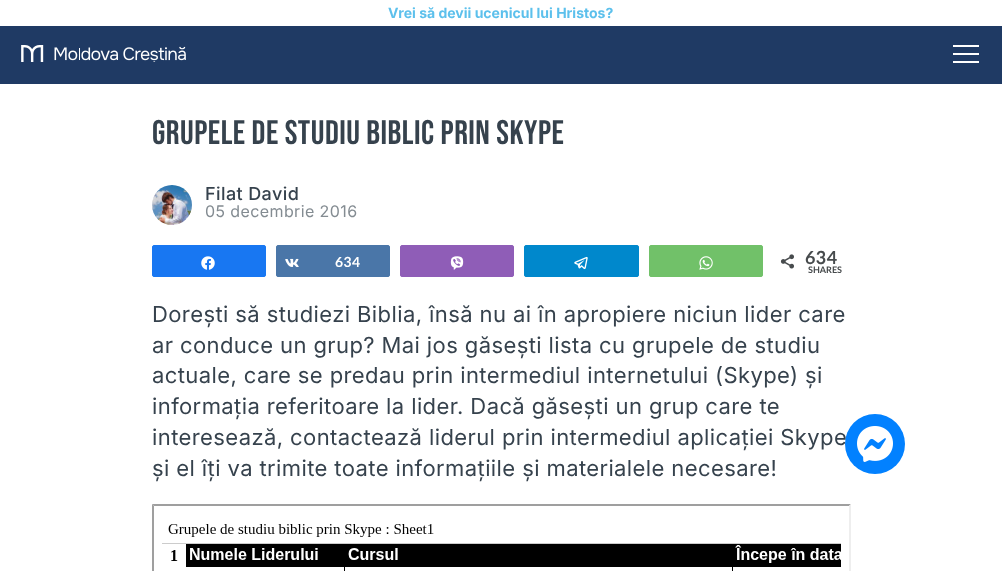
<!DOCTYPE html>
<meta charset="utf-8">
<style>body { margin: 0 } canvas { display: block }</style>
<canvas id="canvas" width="1002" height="571"></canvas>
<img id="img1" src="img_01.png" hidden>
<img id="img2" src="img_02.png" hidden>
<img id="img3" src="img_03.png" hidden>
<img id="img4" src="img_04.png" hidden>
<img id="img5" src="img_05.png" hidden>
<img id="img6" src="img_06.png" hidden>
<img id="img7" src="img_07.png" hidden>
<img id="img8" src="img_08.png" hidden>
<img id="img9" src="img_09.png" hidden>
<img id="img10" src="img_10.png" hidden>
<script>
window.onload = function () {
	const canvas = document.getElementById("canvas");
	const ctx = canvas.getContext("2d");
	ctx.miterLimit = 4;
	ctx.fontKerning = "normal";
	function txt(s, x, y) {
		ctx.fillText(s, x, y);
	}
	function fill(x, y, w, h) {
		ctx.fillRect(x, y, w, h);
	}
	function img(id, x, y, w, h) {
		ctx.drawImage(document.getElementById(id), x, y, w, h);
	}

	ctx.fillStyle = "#FFFFFF";
	fill(0, 0, 1002, 571);
	ctx.fillStyle = "#1F3A64";
	fill(0, 26, 1002, 58);
	img("img1", 21, 45, 165, 17);
	ctx.fillStyle = "#FFFFFF";
	fill(953, 45, 26, 2);
	fill(953, 53, 26, 2);
	fill(953, 61, 26, 2);
	img("img2", 152, 185, 40, 40);
	ctx.fillStyle = "#1877F2";
	ctx.beginPath();
	ctx.roundRect(152.5, 245.5, 113, 31, 1.5);
	ctx.fill();
	ctx.strokeStyle = "#1877F2";
	ctx.stroke();
	img("img3", 201, 256, 14, 14);
	ctx.fillStyle = "#4A76A8";
	ctx.beginPath();
	ctx.roundRect(276.5, 245.5, 113, 31, 1.5);
	ctx.fill();
	ctx.strokeStyle = "#4A76A8";
	ctx.stroke();
	img("img4", 285, 258, 14, 9);
	ctx.fillStyle = "#8F5DB7";
	ctx.beginPath();
	ctx.roundRect(400.5, 245.5, 113, 31, 1.5);
	ctx.fill();
	ctx.strokeStyle = "#8F5DB7";
	ctx.stroke();
	img("img5", 450, 256, 14, 14);
	ctx.fillStyle = "#0088CC";
	ctx.beginPath();
	ctx.roundRect(524.5, 245.5, 114, 31, 1.5);
	ctx.fill();
	ctx.strokeStyle = "#0088CC";
	ctx.stroke();
	img("img6", 574, 256, 14, 14);
	ctx.fillStyle = "#71C169";
	ctx.beginPath();
	ctx.roundRect(649.5, 245.5, 113, 31, 1.5);
	ctx.fill();
	ctx.strokeStyle = "#71C169";
	ctx.stroke();
	img("img7", 699, 256, 14, 14);
	img("img8", 780, 254, 14, 15);
	ctx.fillStyle = "#9F9F9F";
	ctx.beginPath();
	ctx.moveTo(152, 504);
	ctx.lineTo(851, 504);
	ctx.lineTo(849, 506);
	ctx.lineTo(154, 506);
	ctx.closePath();
	ctx.fill();
	ctx.fillStyle = "#EEEEEE";
	ctx.beginPath();
	ctx.moveTo(851, 504);
	ctx.lineTo(851, 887);
	ctx.lineTo(849, 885);
	ctx.lineTo(849, 506);
	ctx.closePath();
	ctx.fill();
	ctx.fillStyle = "#9F9F9F";
	ctx.beginPath();
	ctx.moveTo(152, 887);
	ctx.lineTo(152, 504);
	ctx.lineTo(154, 506);
	ctx.lineTo(154, 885);
	ctx.closePath();
	ctx.fill();
	img("img9", 162, 524, 679, 47);
	ctx.font = "bold 14px Inter";
	ctx.fillStyle = "#5CC0EC";
	txt("Vrei să devii ucenicul lui Hristos?", 388, 18);
	ctx.letterSpacing = "0.5px";
	ctx.font = "34px Bebas Neue";
	ctx.fillStyle = "#36424D";
	txt("Grupele de studiu biblic prin Skype", 152, 144);
	ctx.letterSpacing = "0.4px";
	ctx.font = "500 18px Inter";
	txt("Filat David", 205, 200);
	ctx.font = "16px Inter";
	ctx.fillStyle = "#848C92";
	txt("05 decembrie 2016", 205, 217);
	ctx.font = "bold 14px Lato";
	ctx.fillStyle = "#FFFFFF";
	txt("634", 335, 267);
	ctx.font = "bold 18px Lato";
	ctx.fillStyle = "#474B4D";
	txt("634", 805, 264);
	ctx.letterSpacing = "0px";
	ctx.font = "bold 9px Lato";
	txt("SHARES", 808, 273);
	ctx.letterSpacing = "0.4px";
	ctx.font = "22px Inter";
	ctx.fillStyle = "#36424D";
	txt("Dorești să studiezi Biblia, însă nu ai în apropiere niciun lider care", 152, 322);
	txt("ar conduce un grup? Mai jos găsești lista cu grupele de studiu", 152, 353);
	txt("actuale, care se predau prin intermediul internetului (Skype) și", 152, 383);
	txt("informația referitoare la lider. Dacă găsești un grup care te", 152, 414);
	txt("interesează, contactează liderul prin intermediul aplicației Skype", 152, 445);
	txt("și el îți va trimite toate informațiile și materialele necesare!", 152, 476);
	ctx.fillStyle = "#0281FF";
	ctx.beginPath();
	ctx.arc(875, 444, 30, 0, Math.PI * 2);
	ctx.fill();
	img("img10", 857, 426, 36, 36);
};
</script>
